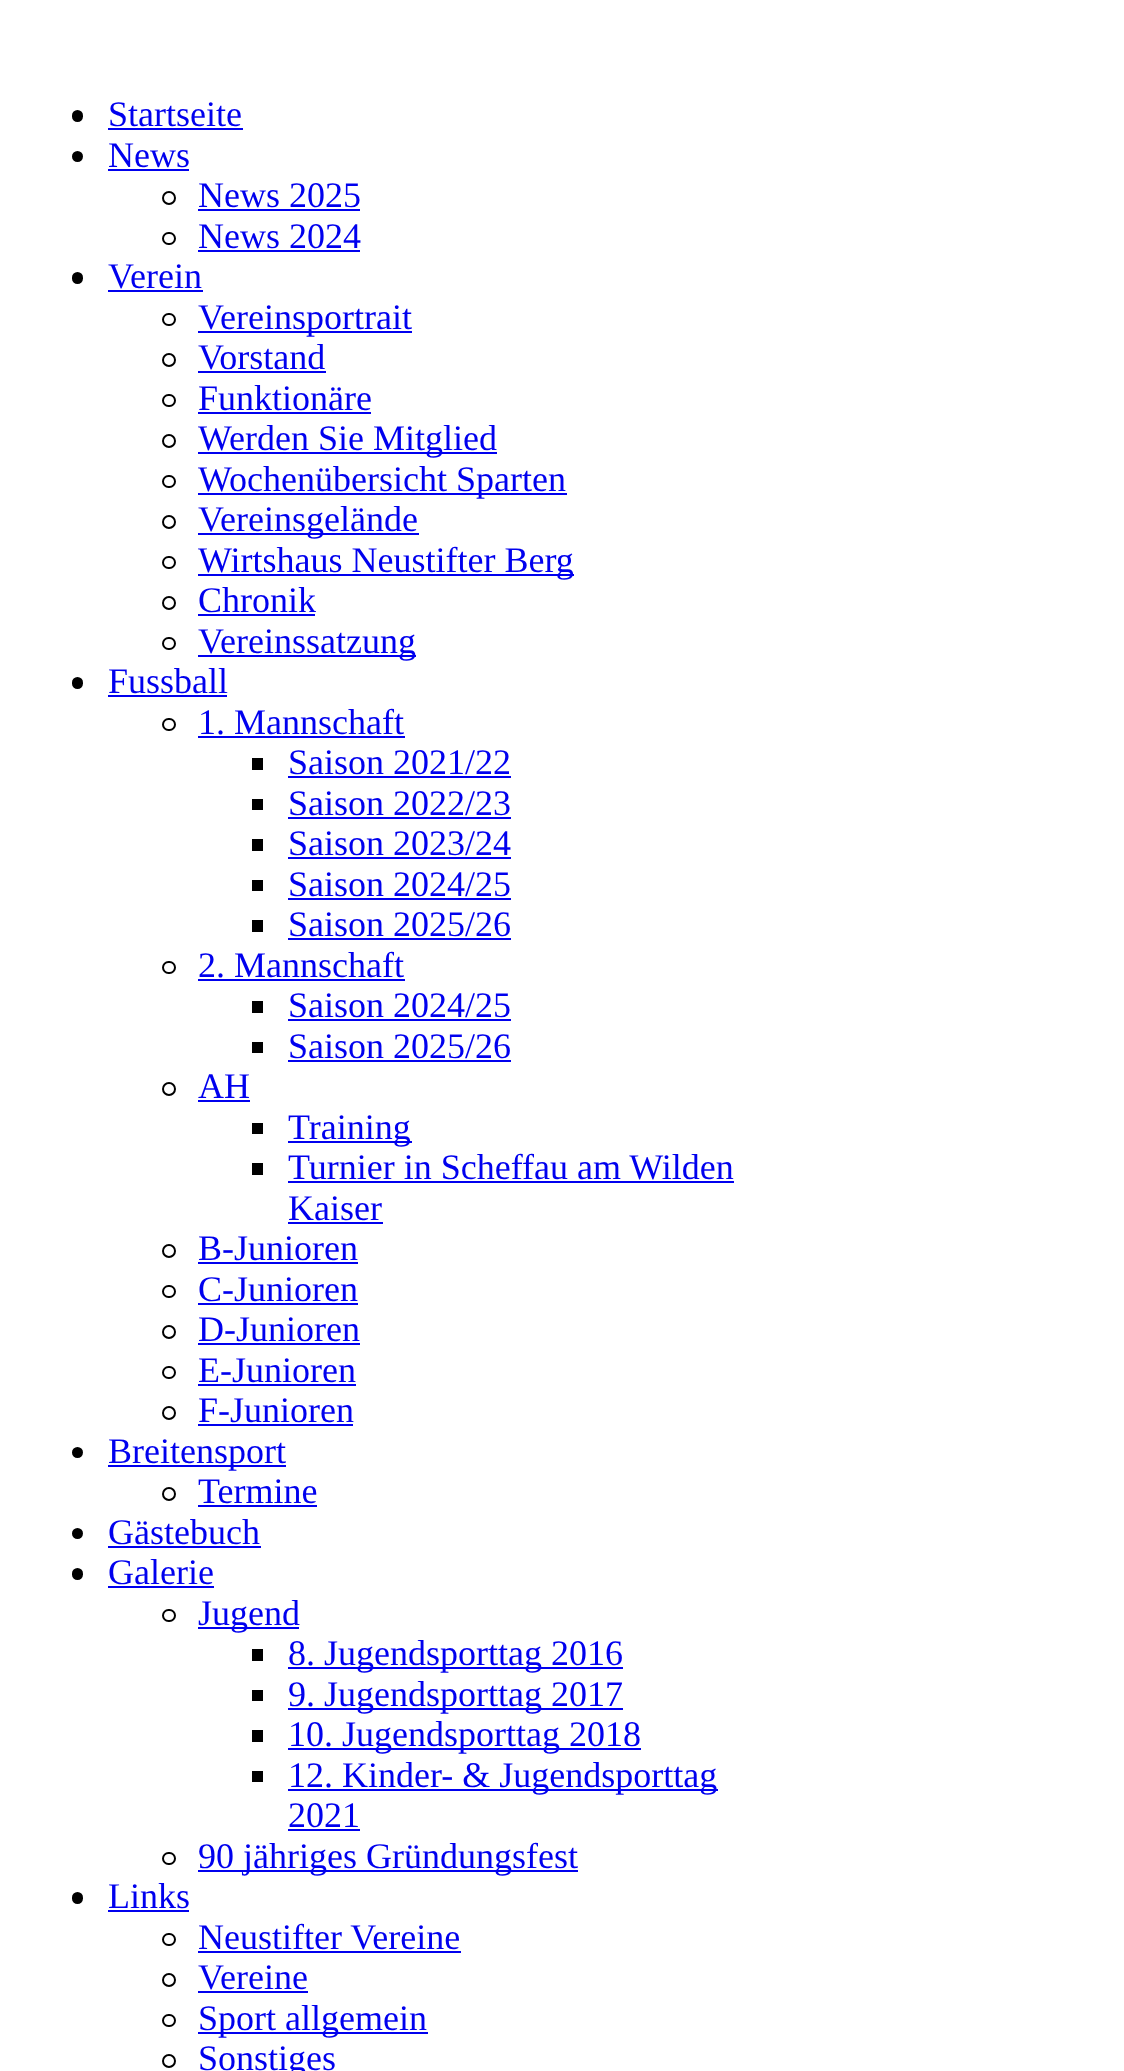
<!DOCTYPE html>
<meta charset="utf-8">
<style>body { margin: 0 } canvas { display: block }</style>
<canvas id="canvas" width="1124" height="2071"></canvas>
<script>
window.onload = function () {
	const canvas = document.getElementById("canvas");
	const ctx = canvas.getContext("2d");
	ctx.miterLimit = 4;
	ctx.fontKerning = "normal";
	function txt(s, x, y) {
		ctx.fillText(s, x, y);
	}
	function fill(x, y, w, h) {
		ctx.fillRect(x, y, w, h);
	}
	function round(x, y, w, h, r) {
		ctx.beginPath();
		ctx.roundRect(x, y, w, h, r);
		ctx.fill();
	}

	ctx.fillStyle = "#FFFFFF";
	fill(0, 0, 1124, 2071);
	ctx.fillStyle = "#000000";
	round(72, 110, 11, 12, 5.5);
	ctx.fillStyle = "#0000EE";
	fill(108, 128, 135, 2);
	ctx.fillStyle = "#000000";
	ctx.beginPath();
	ctx.arc(77.5, 156.5, 5.5, 0, Math.PI * 2);
	ctx.fill();
	ctx.fillStyle = "#0000EE";
	fill(108, 169, 81, 2);
	ctx.beginPath();
	ctx.arc(169, 198, 6, 0, Math.PI * 2);
	ctx.strokeStyle = "#000000";
	ctx.lineWidth = 2;
	ctx.stroke();
	fill(198, 209, 162, 2);
	ctx.beginPath();
	ctx.roundRect(163, 233, 12, 11, 5.5);
	ctx.stroke();
	fill(198, 250, 162, 2);
	ctx.fillStyle = "#000000";
	round(72, 272, 11, 12, 5.5);
	ctx.fillStyle = "#0000EE";
	fill(108, 290, 95, 2);
	ctx.beginPath();
	ctx.roundRect(163, 314, 12, 11, 5.5);
	ctx.stroke();
	fill(198, 331, 214, 2);
	ctx.beginPath();
	ctx.arc(169, 360, 6, 0, Math.PI * 2);
	ctx.stroke();
	fill(198, 371, 128, 2);
	ctx.beginPath();
	ctx.roundRect(163, 395, 12, 11, 5.5);
	ctx.stroke();
	fill(198, 412, 173, 2);
	ctx.beginPath();
	ctx.arc(169, 441, 6, 0, Math.PI * 2);
	ctx.stroke();
	fill(198, 452, 299, 2);
	ctx.beginPath();
	ctx.roundRect(163, 476, 12, 11, 5.5);
	ctx.stroke();
	fill(198, 493, 369, 2);
	ctx.beginPath();
	ctx.arc(169, 522, 6, 0, Math.PI * 2);
	ctx.stroke();
	fill(198, 533, 221, 2);
	ctx.beginPath();
	ctx.roundRect(163, 557, 12, 11, 5.5);
	ctx.stroke();
	fill(198, 574, 376, 2);
	ctx.beginPath();
	ctx.arc(169, 603, 6, 0, Math.PI * 2);
	ctx.stroke();
	fill(198, 614, 117, 2);
	ctx.beginPath();
	ctx.roundRect(163, 638, 12, 11, 5.5);
	ctx.stroke();
	fill(198, 655, 218, 2);
	ctx.fillStyle = "#000000";
	round(72, 677, 11, 12, 5.5);
	ctx.fillStyle = "#0000EE";
	fill(108, 695, 119, 2);
	ctx.beginPath();
	ctx.roundRect(163, 719, 12, 11, 5.5);
	ctx.stroke();
	fill(198, 736, 207, 2);
	ctx.fillStyle = "#000000";
	fill(252, 758, 11, 12);
	ctx.fillStyle = "#0000EE";
	fill(288, 776, 223, 2);
	ctx.fillStyle = "#000000";
	fill(252, 799, 11, 11);
	ctx.fillStyle = "#0000EE";
	fill(288, 817, 223, 2);
	ctx.fillStyle = "#000000";
	fill(252, 839, 11, 12);
	ctx.fillStyle = "#0000EE";
	fill(288, 857, 223, 2);
	ctx.fillStyle = "#000000";
	fill(252, 880, 11, 11);
	ctx.fillStyle = "#0000EE";
	fill(288, 898, 223, 2);
	ctx.fillStyle = "#000000";
	fill(252, 920, 11, 12);
	ctx.fillStyle = "#0000EE";
	fill(288, 938, 223, 2);
	ctx.beginPath();
	ctx.roundRect(163, 962, 12, 11, 5.5);
	ctx.stroke();
	fill(198, 979, 207, 2);
	ctx.fillStyle = "#000000";
	fill(252, 1001, 11, 12);
	ctx.fillStyle = "#0000EE";
	fill(288, 1019, 223, 2);
	ctx.fillStyle = "#000000";
	fill(252, 1042, 11, 11);
	ctx.fillStyle = "#0000EE";
	fill(288, 1060, 223, 2);
	ctx.beginPath();
	ctx.arc(169, 1089, 6, 0, Math.PI * 2);
	ctx.stroke();
	fill(198, 1100, 52, 2);
	ctx.fillStyle = "#000000";
	fill(252, 1123, 11, 11);
	ctx.fillStyle = "#0000EE";
	fill(288, 1141, 124, 2);
	ctx.fillStyle = "#000000";
	fill(252, 1163, 11, 12);
	ctx.fillStyle = "#0000EE";
	fill(288, 1181, 446, 2);
	fill(288, 1222, 95, 2);
	ctx.beginPath();
	ctx.arc(169, 1251, 6, 0, Math.PI * 2);
	ctx.stroke();
	fill(198, 1262, 160, 2);
	ctx.beginPath();
	ctx.roundRect(163, 1286, 12, 11, 5.5);
	ctx.stroke();
	fill(198, 1303, 160, 2);
	ctx.beginPath();
	ctx.arc(169, 1332, 6, 0, Math.PI * 2);
	ctx.stroke();
	fill(198, 1343, 162, 2);
	ctx.beginPath();
	ctx.roundRect(163, 1367, 12, 11, 5.5);
	ctx.stroke();
	fill(198, 1384, 158, 2);
	ctx.beginPath();
	ctx.arc(169, 1413, 6, 0, Math.PI * 2);
	ctx.stroke();
	fill(198, 1424, 155, 2);
	ctx.fillStyle = "#000000";
	ctx.beginPath();
	ctx.arc(77.5, 1452.5, 5.5, 0, Math.PI * 2);
	ctx.fill();
	ctx.fillStyle = "#0000EE";
	fill(108, 1465, 178, 2);
	ctx.beginPath();
	ctx.arc(169, 1494, 6, 0, Math.PI * 2);
	ctx.stroke();
	fill(198, 1505, 119, 2);
	ctx.fillStyle = "#000000";
	ctx.beginPath();
	ctx.arc(77.5, 1533.5, 5.5, 0, Math.PI * 2);
	ctx.fill();
	ctx.fillStyle = "#0000EE";
	fill(108, 1546, 153, 2);
	ctx.fillStyle = "#000000";
	round(72, 1568, 11, 12, 5.5);
	ctx.fillStyle = "#0000EE";
	fill(108, 1586, 106, 2);
	ctx.beginPath();
	ctx.roundRect(163, 1610, 12, 11, 5.5);
	ctx.stroke();
	fill(198, 1627, 101, 2);
	ctx.fillStyle = "#000000";
	fill(252, 1649, 11, 12);
	ctx.fillStyle = "#0000EE";
	fill(288, 1667, 335, 2);
	ctx.fillStyle = "#000000";
	fill(252, 1690, 11, 11);
	ctx.fillStyle = "#0000EE";
	fill(288, 1708, 335, 2);
	ctx.fillStyle = "#000000";
	fill(252, 1730, 11, 12);
	ctx.fillStyle = "#0000EE";
	fill(288, 1748, 353, 2);
	ctx.fillStyle = "#000000";
	fill(252, 1771, 11, 11);
	ctx.fillStyle = "#0000EE";
	fill(288, 1789, 430, 2);
	fill(288, 1829, 72, 2);
	ctx.beginPath();
	ctx.roundRect(163, 1853, 12, 11, 5.5);
	ctx.stroke();
	fill(198, 1870, 380, 2);
	ctx.fillStyle = "#000000";
	round(72, 1892, 11, 12, 5.5);
	ctx.fillStyle = "#0000EE";
	fill(108, 1910, 81, 2);
	ctx.beginPath();
	ctx.roundRect(163, 1934, 12, 11, 5.5);
	ctx.stroke();
	fill(198, 1951, 263, 2);
	ctx.beginPath();
	ctx.arc(169, 1980, 6, 0, Math.PI * 2);
	ctx.stroke();
	fill(198, 1991, 110, 2);
	ctx.beginPath();
	ctx.roundRect(163, 2015, 12, 11, 5.5);
	ctx.stroke();
	fill(198, 2032, 230, 2);
	ctx.beginPath();
	ctx.arc(169, 2061, 6, 0, Math.PI * 2);
	ctx.stroke();
	ctx.font = "36px Liberation Serif";
	txt("Startseite", 108, 126);
	txt("News", 108, 167);
	txt("News 2025", 198, 207);
	txt("News 2024", 198, 248);
	txt("Verein", 108, 288);
	txt("Vereinsportrait", 198, 329);
	txt("Vorstand", 198, 369);
	txt("Funktionäre", 198, 410);
	txt("Werden Sie Mitglied", 198, 450);
	txt("Wochenübersicht Sparten", 198, 491);
	txt("Vereinsgelände", 198, 531);
	txt("Wirtshaus Neustifter Berg", 198, 572);
	txt("Chronik", 198, 612);
	txt("Vereinssatzung", 198, 653);
	txt("Fussball", 108, 693);
	txt("1. Mannschaft", 198, 734);
	txt("Saison 2021/22", 288, 774);
	txt("Saison 2022/23", 288, 815);
	txt("Saison 2023/24", 288, 855);
	txt("Saison 2024/25", 288, 896);
	txt("Saison 2025/26", 288, 936);
	txt("2. Mannschaft", 198, 977);
	txt("Saison 2024/25", 288, 1017);
	txt("Saison 2025/26", 288, 1058);
	txt("AH", 198, 1098);
	txt("Training", 288, 1139);
	txt("Turnier in Scheffau am Wilden", 288, 1179);
	txt("Kaiser", 288, 1220);
	txt("B-Junioren", 198, 1260);
	txt("C-Junioren", 198, 1301);
	txt("D-Junioren", 198, 1341);
	txt("E-Junioren", 198, 1382);
	txt("F-Junioren", 198, 1422);
	txt("Breitensport", 108, 1463);
	txt("Termine", 198, 1503);
	txt("Gästebuch", 108, 1544);
	txt("Galerie", 108, 1584);
	txt("Jugend", 198, 1625);
	txt("8. Jugendsporttag 2016", 288, 1665);
	txt("9. Jugendsporttag 2017", 288, 1706);
	txt("10. Jugendsporttag 2018", 288, 1746);
	txt("12. Kinder- & Jugendsporttag", 288, 1787);
	txt("2021", 288, 1827);
	txt("90 jähriges Gründungsfest", 198, 1868);
	txt("Links", 108, 1908);
	txt("Neustifter Vereine", 198, 1949);
	txt("Vereine", 198, 1989);
	txt("Sport allgemein", 198, 2030);
	txt("Sonstiges", 198, 2070);
};
</script>
